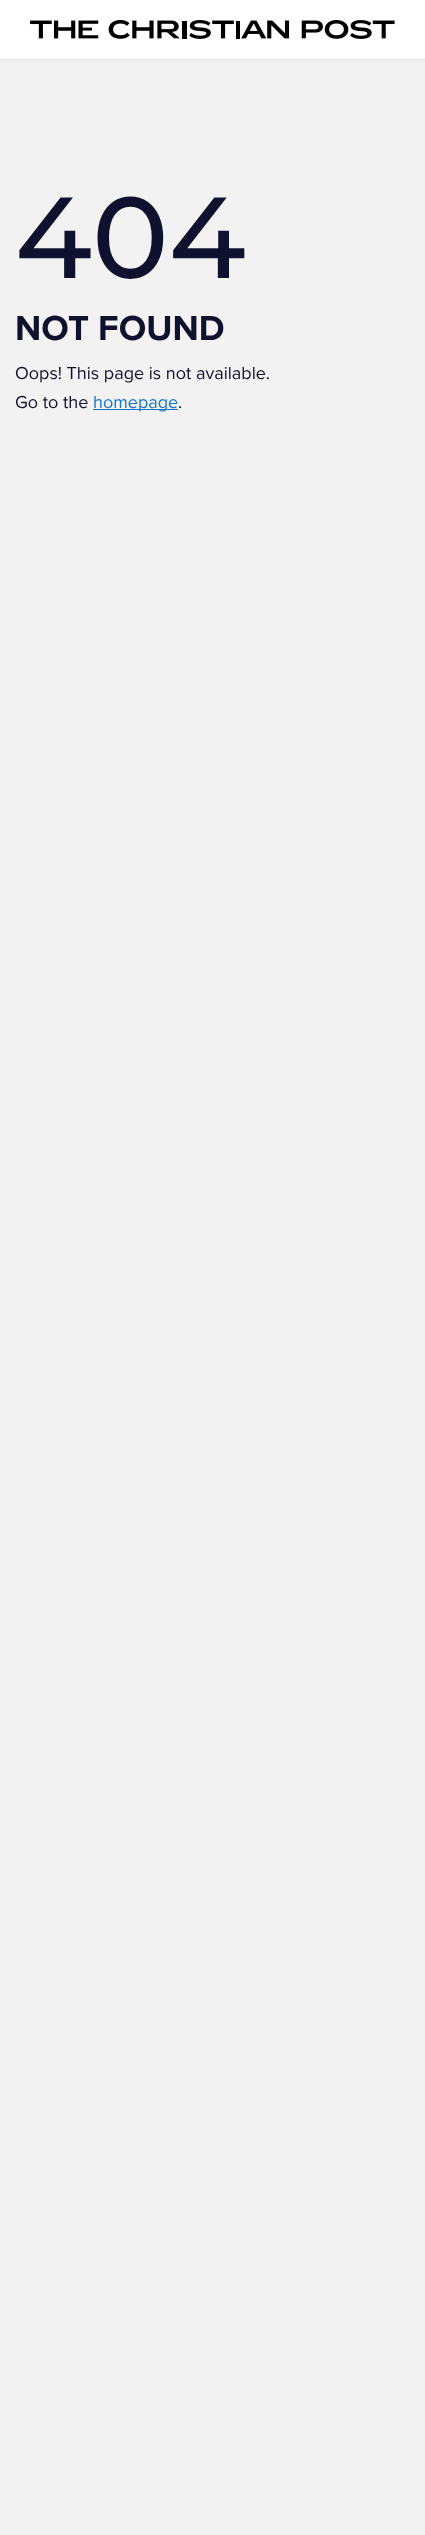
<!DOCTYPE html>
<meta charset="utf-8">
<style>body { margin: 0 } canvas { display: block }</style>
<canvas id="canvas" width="425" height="2535"></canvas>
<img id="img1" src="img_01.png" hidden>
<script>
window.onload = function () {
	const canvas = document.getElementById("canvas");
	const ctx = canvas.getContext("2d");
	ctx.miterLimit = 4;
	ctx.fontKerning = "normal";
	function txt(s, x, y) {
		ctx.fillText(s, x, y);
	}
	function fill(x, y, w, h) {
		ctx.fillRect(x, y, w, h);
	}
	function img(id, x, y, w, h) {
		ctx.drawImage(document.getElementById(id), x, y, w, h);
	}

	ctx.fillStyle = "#FFFFFF";
	fill(0, 0, 425, 2535);
	ctx.fillStyle = "#E6E6E6";
	fill(0, 59, 425, 1);
	img("img1", 30, 20, 365, 19);
	ctx.fillStyle = "#F2F2F2";
	fill(0, 60, 425, 2475);
	ctx.fillStyle = "#1774CE";
	fill(93, 409, 85, 1);
	ctx.font = "500 115px Montserrat";
	ctx.fillStyle = "#0F112E";
	txt("404", 15, 278);
	ctx.font = "bold 36px Proxima Nova";
	txt("NOT FOUND", 15, 340);
	ctx.font = "18px Proxima Nova";
	txt("Oops! This page is not available.", 15, 379);
	txt("Go to the", 15, 408);
	ctx.fillStyle = "#1774CE";
	txt("homepage", 93, 408);
	ctx.fillStyle = "#0F112E";
	txt(".", 178, 408);
};
</script>
